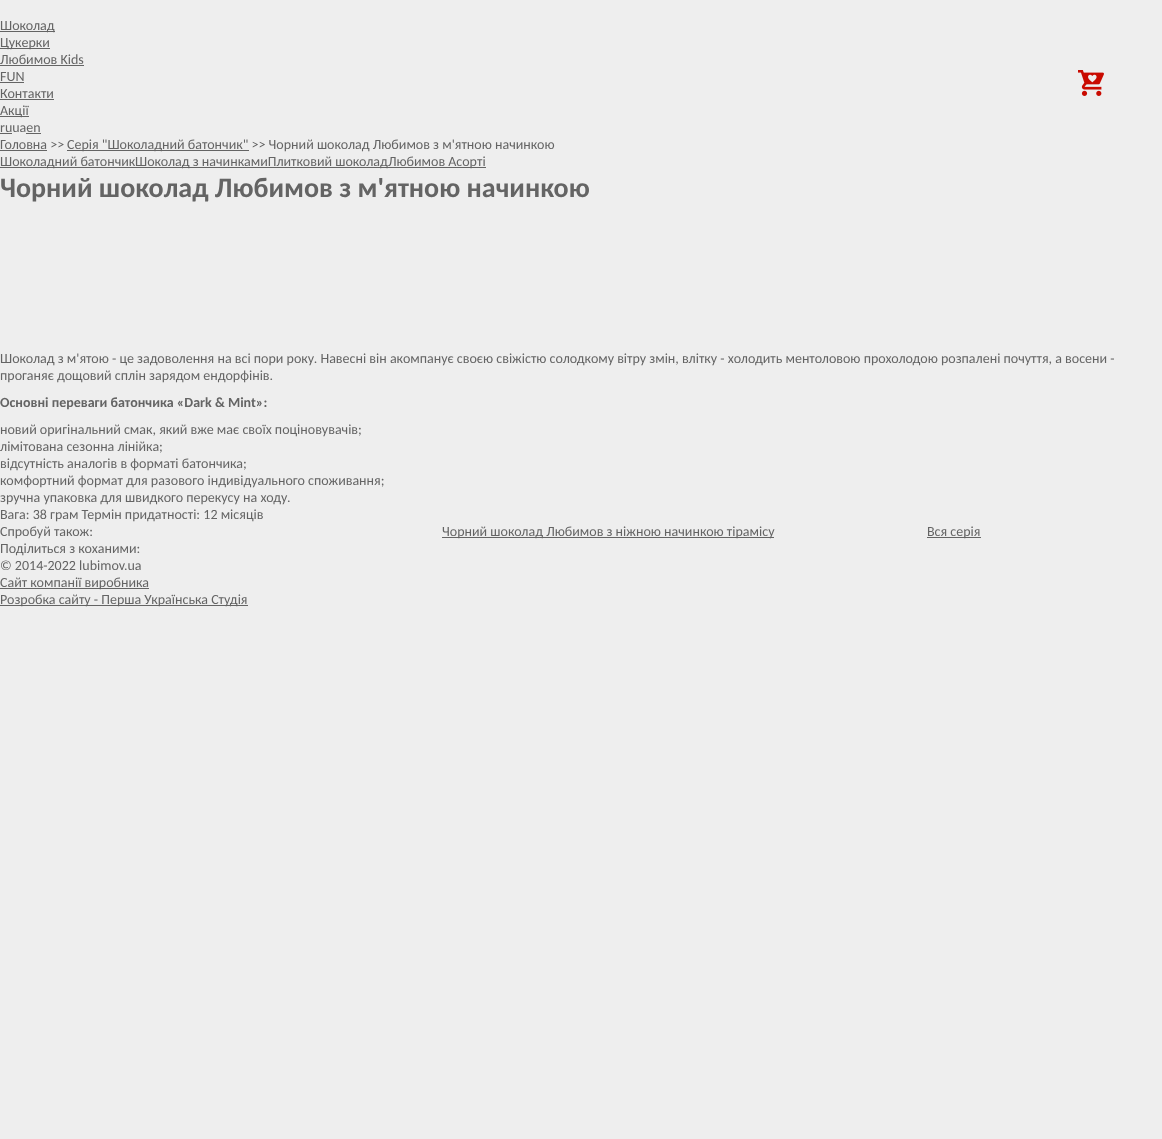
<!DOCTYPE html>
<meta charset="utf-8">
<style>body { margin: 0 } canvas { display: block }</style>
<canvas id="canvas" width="1162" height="1139"></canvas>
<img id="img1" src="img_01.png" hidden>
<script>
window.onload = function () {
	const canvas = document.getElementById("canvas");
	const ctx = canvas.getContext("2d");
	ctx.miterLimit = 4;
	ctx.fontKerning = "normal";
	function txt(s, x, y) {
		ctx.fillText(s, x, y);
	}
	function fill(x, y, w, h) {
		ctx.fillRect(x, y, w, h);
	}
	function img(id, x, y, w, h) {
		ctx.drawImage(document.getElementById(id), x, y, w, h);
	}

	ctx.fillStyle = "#EEEEEE";
	fill(0, 0, 1162, 1139);
	ctx.fillStyle = "#646464";
	fill(0, 31, 55, 1);
	fill(0, 48, 50, 1);
	fill(0, 65, 84, 1);
	fill(0, 82, 24, 1);
	fill(0, 99, 54, 1);
	fill(0, 116, 29, 1);
	fill(0, 133, 12, 1);
	fill(26, 133, 15, 1);
	img("img1", 1078, 70, 26, 26);
	fill(0, 150, 47, 1);
	fill(67, 150, 182, 1);
	fill(0, 167, 135, 1);
	fill(135, 167, 351, 1);
	fill(442, 537, 332, 1);
	fill(927, 537, 54, 1);
	fill(0, 588, 149, 1);
	fill(0, 605, 248, 1);
	ctx.font = "14px Carlito";
	txt("Шоколад", 0, 30);
	txt("Цукерки", 0, 47);
	txt("Любимов Kids", 0, 64);
	txt("FUN", 0, 81);
	txt("Контакти", 0, 98);
	txt("Акції", 0, 115);
	txt("ruuaen", 0, 132);
	txt("Головна >>", 0, 149);
	txt("Серія \"Шоколадний батончик\" >> Чорний шоколад Любимов з м'ятною начинкою", 67, 149);
	txt("Шоколадний батончик", 0, 166);
	txt("Шоколад з начинкамиПлитковий шоколадЛюбимов Асорті", 135, 166);
	ctx.font = "bold 28px Carlito";
	txt("Чорний шоколад Любимов з м'ятною начинкою", 0, 197);
	ctx.font = "14px Carlito";
	txt("Шоколад з м'ятою - це задоволення на всі пори року. Навесні він акомпанує своєю свіжістю солодкому вітру змін, влітку - холодить ментоловою прохолодою розпалені почуття, а восени -", 0, 363);
	txt("проганяє дощовий сплін зарядом ендорфінів.", 0, 380);
	ctx.font = "bold 14px Carlito";
	txt("Основні переваги батончика «Dark & Mint»:", 0, 407);
	ctx.font = "14px Carlito";
	txt("новий оригінальний смак, який вже має своїх поціновувачів;", 0, 434);
	txt("лімітована сезонна лінійка;", 0, 451);
	txt("відсутність аналогів в форматі батончика;", 0, 468);
	txt("комфортний формат для разового індивідуального споживання;", 0, 485);
	txt("зручна упаковка для швидкого перекусу на ходу.", 0, 502);
	txt("Вага: 38 грам Термін придатності: 12 місяців", 0, 519);
	txt("Спробуй також:", 0, 536);
	txt("Чорний шоколад Любимов з ніжною начинкою тірамісу", 442, 536);
	txt("Вся серія", 927, 536);
	txt("Поділиться з коханими:", 0, 553);
	txt("© 2014-2022 lubimov.ua", 0, 570);
	txt("Сайт компанії виробника", 0, 587);
	txt("Розробка сайту - Перша Українська Студія", 0, 604);
};
</script>
